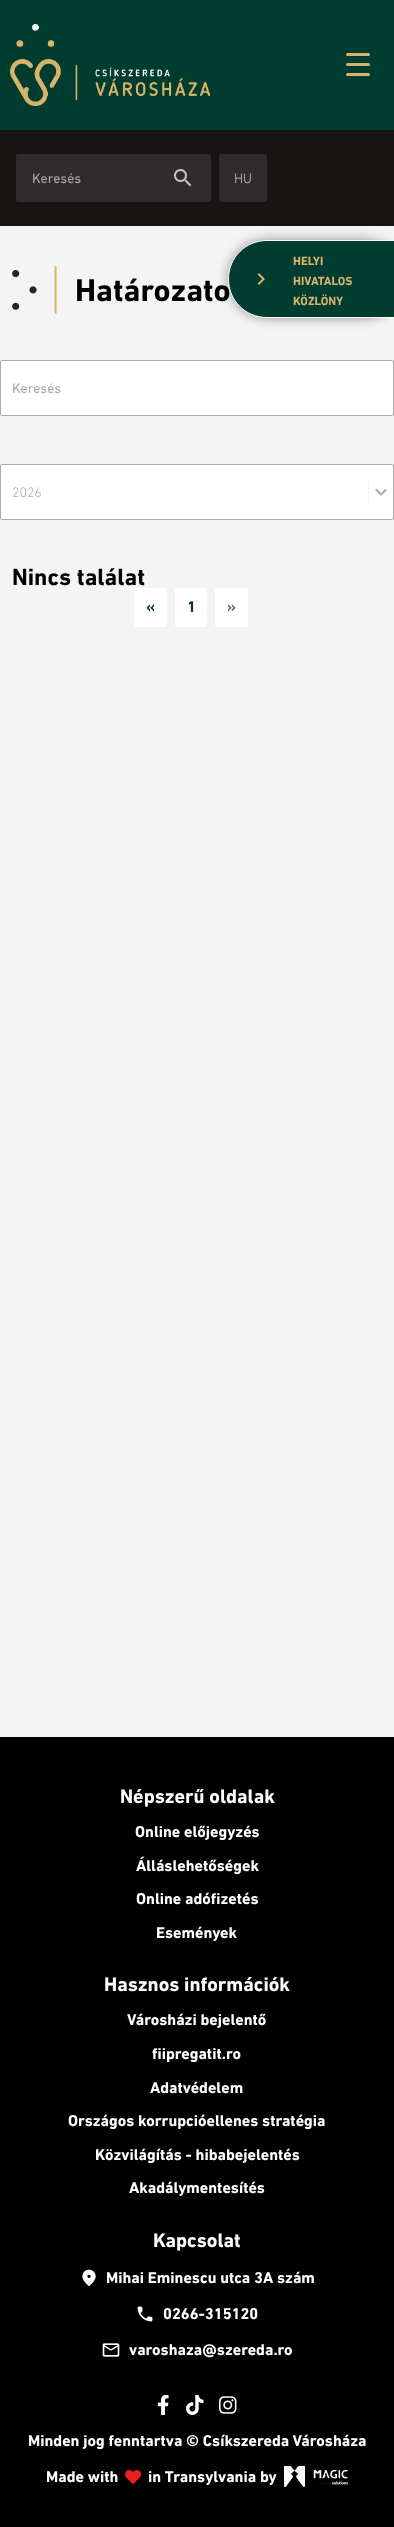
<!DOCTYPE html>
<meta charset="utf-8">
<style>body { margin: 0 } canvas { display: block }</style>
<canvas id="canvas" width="394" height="2527"></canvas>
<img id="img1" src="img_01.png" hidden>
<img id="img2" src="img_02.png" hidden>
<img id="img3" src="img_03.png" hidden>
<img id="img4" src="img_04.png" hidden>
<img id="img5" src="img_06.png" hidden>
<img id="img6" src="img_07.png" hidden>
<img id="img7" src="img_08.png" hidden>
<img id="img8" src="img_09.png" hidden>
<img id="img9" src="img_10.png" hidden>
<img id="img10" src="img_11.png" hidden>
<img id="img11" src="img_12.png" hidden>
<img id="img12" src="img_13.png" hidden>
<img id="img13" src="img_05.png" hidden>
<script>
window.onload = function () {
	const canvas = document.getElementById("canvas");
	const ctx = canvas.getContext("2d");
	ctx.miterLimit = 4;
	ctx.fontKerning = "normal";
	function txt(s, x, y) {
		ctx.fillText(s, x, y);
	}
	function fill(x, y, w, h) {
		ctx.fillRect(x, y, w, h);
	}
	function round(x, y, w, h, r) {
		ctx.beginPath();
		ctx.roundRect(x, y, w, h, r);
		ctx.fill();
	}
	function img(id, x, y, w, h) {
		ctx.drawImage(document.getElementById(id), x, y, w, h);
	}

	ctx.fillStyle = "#F4F4F4";
	fill(0, 0, 394, 2527);
	ctx.fillStyle = "#003C2F";
	fill(0, 0, 394, 130);
	img("img1", 10, 24, 200, 82);
	ctx.fillStyle = "#D7B46A";
	ctx.beginPath();
	ctx.roundRect(346, 53, 12, 3, [1.5, 0, 0, 1.5]);
	ctx.fill();
	ctx.beginPath();
	ctx.roundRect(358, 53, 12, 3, [0, 1.5, 1.5, 0]);
	ctx.fill();
	ctx.beginPath();
	ctx.roundRect(346, 63, 12, 3, [1.5, 0, 0, 1.5]);
	ctx.fill();
	ctx.beginPath();
	ctx.roundRect(358, 63, 12, 3, [0, 1.5, 1.5, 0]);
	ctx.fill();
	ctx.beginPath();
	ctx.roundRect(346, 73, 12, 3, [1.5, 0, 0, 1.5]);
	ctx.fill();
	ctx.beginPath();
	ctx.roundRect(358, 73, 12, 3, [0, 1.5, 1.5, 0]);
	ctx.fill();
	ctx.fillStyle = "rgba(0, 0, 0, 0.4)";
	ctx.filter = "blur(6px)";
	ctx.beginPath();
	ctx.roundRect(228, 240, 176, 78, 39);
	ctx.fill();
	ctx.filter = "none";
	ctx.fillStyle = "#171414";
	fill(0, 130, 394, 96);
	ctx.fillStyle = "#2E2C2C";
	round(16, 154, 195, 48, 2);
	img("img2", 174, 169, 17, 17);
	round(219, 154, 48, 48, 2);
	img("img3", 12, 266, 45, 48);
	ctx.fillStyle = "#FFFFFF";
	ctx.beginPath();
	ctx.roundRect(0.5, 360.5, 393, 55, 1.5);
	ctx.fill();
	ctx.strokeStyle = "#ADA8A8";
	ctx.stroke();
	ctx.beginPath();
	ctx.roundRect(0.5, 464.5, 393, 55, 1.5);
	ctx.fill();
	ctx.stroke();
	ctx.fillStyle = "#F7F3F2";
	fill(368, 479, 1, 26);
	img("img4", 375, 489, 12, 7);
	ctx.fillStyle = "#FFFFFF";
	round(134, 588, 33, 39, 2);
	round(175, 588, 32, 39, 2);
	round(215, 588, 33, 39, 2);
	ctx.fillStyle = "#000000";
	fill(0, 1737, 394, 790);
	img("img5", 82, 2269, 14, 17);
	img("img6", 137, 2306, 16, 16);
	img("img7", 102, 2343, 18, 14);
	img("img8", 157, 2395, 12, 20);
	img("img9", 186, 2395, 18, 20);
	img("img10", 219, 2396, 18, 18);
	img("img11", 125, 2470, 16, 14);
	img("img12", 284, 2466, 64, 21);
	ctx.font = "14px DIN Next";
	ctx.fillStyle = "#ADA8A8";
	txt("Keresés", 32, 183);
	ctx.font = "300 14px DIN Next";
	ctx.fillStyle = "#CAC5C4";
	txt("HU", 234, 183);
	ctx.font = "bold 32px DIN Next";
	ctx.fillStyle = "#000000";
	txt("Határozato", 75, 301);
	ctx.font = "14px DIN Next";
	ctx.fillStyle = "#ADA8A8";
	txt("Keresés", 12, 393);
	ctx.font = "300 14px DIN Next";
	txt("2026", 12, 497);
	ctx.font = "bold 24px DIN Next";
	ctx.fillStyle = "#000000";
	txt("Nincs találat", 12, 585);
	ctx.font = "bold 16px DIN Next";
	ctx.fillStyle = "#003C2F";
	txt("«", 146, 612);
	txt("1", 187, 612);
	ctx.fillStyle = "#726E6E";
	txt("»", 227, 612);
	ctx.fillStyle = "#003C2F";
	ctx.beginPath();
	ctx.moveTo(267, 240.5);
	ctx.lineTo(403.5, 240.5);
	ctx.lineTo(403.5, 317.5);
	ctx.lineTo(267, 317.5);
	ctx.bezierCurveTo(245.5, 317.5, 228.5, 300.5, 228.5, 279);
	ctx.bezierCurveTo(228.5, 257.5, 245.5, 240.5, 267, 240.5);
	ctx.closePath();
	ctx.fill();
	ctx.strokeStyle = "#FFFFFF";
	ctx.stroke();
	img("img13", 257, 273, 8, 12);
	ctx.font = "bold 12px DIN Next";
	ctx.fillStyle = "#D7B46A";
	txt("HELYI", 293, 265);
	txt("HIVATALOS", 293, 285);
	txt("KÖZLÖNY", 293, 305);
	ctx.font = "bold 20px DIN Next";
	ctx.fillStyle = "#FFFFFF";
	txt("Népszerű oldalak", 120, 1803);
	ctx.font = "bold 16px DIN Next";
	txt("Online előjegyzés", 135, 1837);
	txt("Álláslehetőségek", 136, 1871);
	txt("Online adófizetés", 136, 1904);
	txt("Események", 156, 1938);
	ctx.font = "bold 20px DIN Next";
	txt("Hasznos információk", 104, 1991);
	ctx.font = "bold 16px DIN Next";
	txt("Városházi bejelentő", 127, 2025);
	txt("fiipregatit.ro", 152, 2059);
	txt("Adatvédelem", 150, 2093);
	txt("Országos korrupcióellenes stratégia", 68, 2126);
	txt("Közvilágítás - hibabejelentés", 95, 2160);
	txt("Akadálymentesítés", 129, 2193);
	ctx.font = "bold 20px DIN Next";
	txt("Kapcsolat", 153, 2247);
	ctx.font = "bold 16px DIN Next";
	txt("Mihai Eminescu utca 3A szám", 106, 2283);
	txt("0266-315120", 163, 2319);
	txt("varoshaza@szereda.ro", 129, 2355);
	txt("Minden jog fenntartva © Csíkszereda Városháza", 28, 2446);
	txt("Made with", 46, 2482);
	txt("in Transylvania by", 148, 2482);
};
</script>
